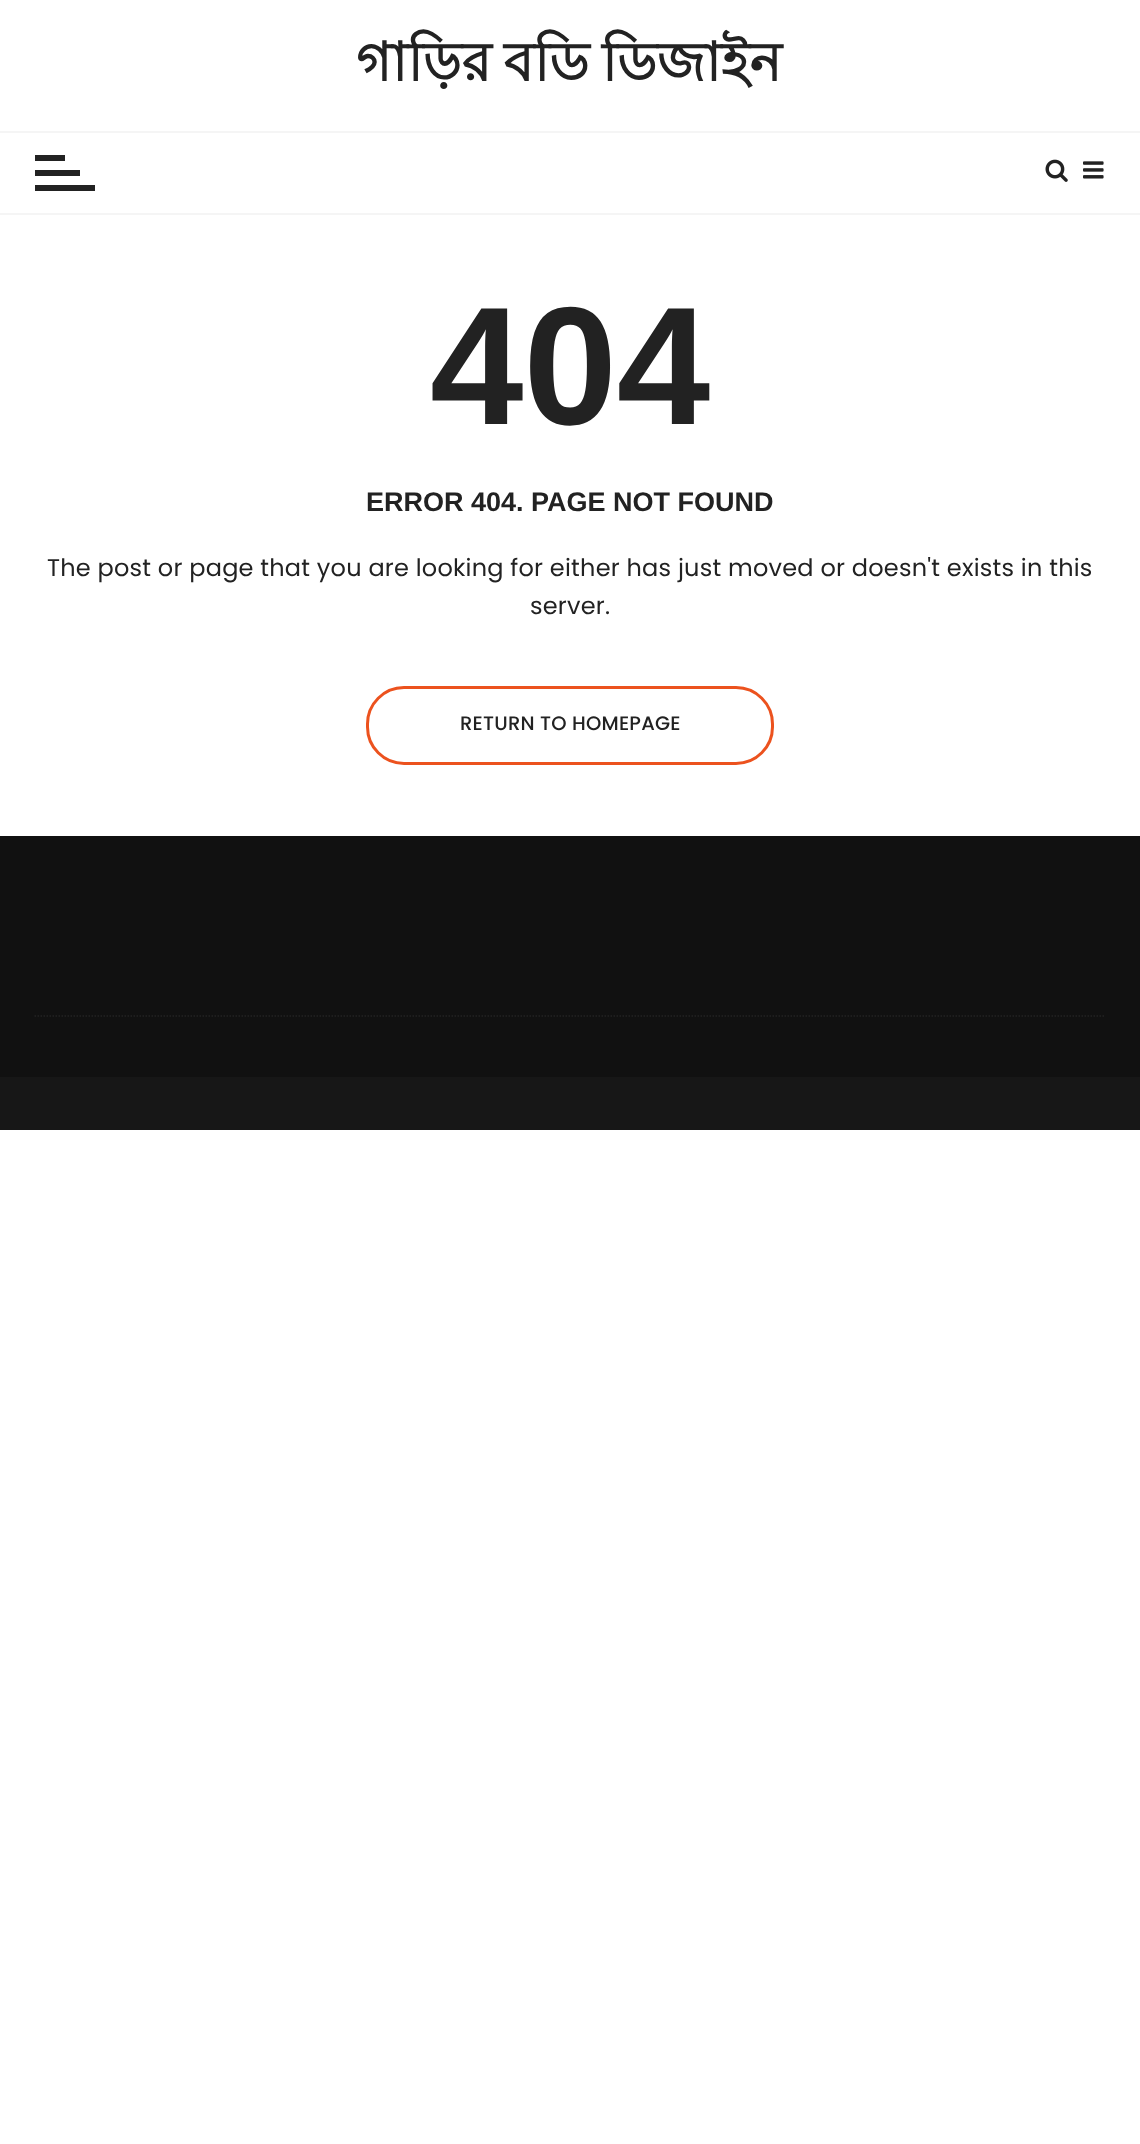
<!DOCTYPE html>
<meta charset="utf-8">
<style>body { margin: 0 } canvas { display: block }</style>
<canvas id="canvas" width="1140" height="2144"></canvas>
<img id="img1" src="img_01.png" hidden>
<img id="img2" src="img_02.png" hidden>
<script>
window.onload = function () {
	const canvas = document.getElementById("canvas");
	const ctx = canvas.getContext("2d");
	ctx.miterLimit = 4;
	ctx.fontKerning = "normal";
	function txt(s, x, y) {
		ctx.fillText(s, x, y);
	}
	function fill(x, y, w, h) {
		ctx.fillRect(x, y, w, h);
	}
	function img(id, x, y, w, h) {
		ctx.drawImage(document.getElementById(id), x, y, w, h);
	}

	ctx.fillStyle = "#FFFFFF";
	fill(0, 0, 1140, 2144);
	ctx.fillStyle = "#F5F5F5";
	fill(0, 131, 1140, 2);
	fill(0, 213, 1140, 2);
	ctx.fillStyle = "#222222";
	fill(35, 155, 30, 6);
	fill(35, 170, 45, 6);
	fill(35, 185, 60, 6);
	img("img1", 1045, 159, 23, 23);
	img("img2", 1083, 161, 21, 18);
	ctx.beginPath();
	ctx.roundRect(367.5, 687.5, 405, 76, 36.5);
	ctx.strokeStyle = "#EC521E";
	ctx.lineWidth = 3;
	ctx.stroke();
	ctx.fillStyle = "#111111";
	fill(0, 836, 1140, 241);
	ctx.beginPath();
	ctx.moveTo(34.5, 1016);
	ctx.lineTo(1105.5, 1016);
	ctx.strokeStyle = "#232323";
	ctx.lineWidth = 1.5;
	ctx.setLineDash([1.5, 1.5]);
	ctx.stroke();
	ctx.fillStyle = "#171717";
	fill(0, 1077, 1140, 53);
	ctx.letterSpacing = "0.22px";
	ctx.wordSpacing = "-3px";
	ctx.font = "bold 54px Lohit Bengali";
	ctx.fillStyle = "#222222";
	txt("গাড়ির বডি ডিজাইন", 356, 81);
	ctx.letterSpacing = "0px";
	ctx.wordSpacing = "0px";
	ctx.font = "bold 168px Liberation Sans";
	txt("404", 430, 424);
	ctx.font = "bold 27px Liberation Sans";
	txt("ERROR 404. PAGE NOT FOUND", 366, 511);
	ctx.letterSpacing = "0.22px";
	ctx.font = "24px Poppins";
	txt("The post or page that you are looking for either has just moved or doesn't exists in this", 47, 576);
	txt("server.", 530, 614);
	ctx.font = "500 19.5px Poppins";
	txt("RETURN TO HOMEPAGE", 460, 730);
};
</script>
